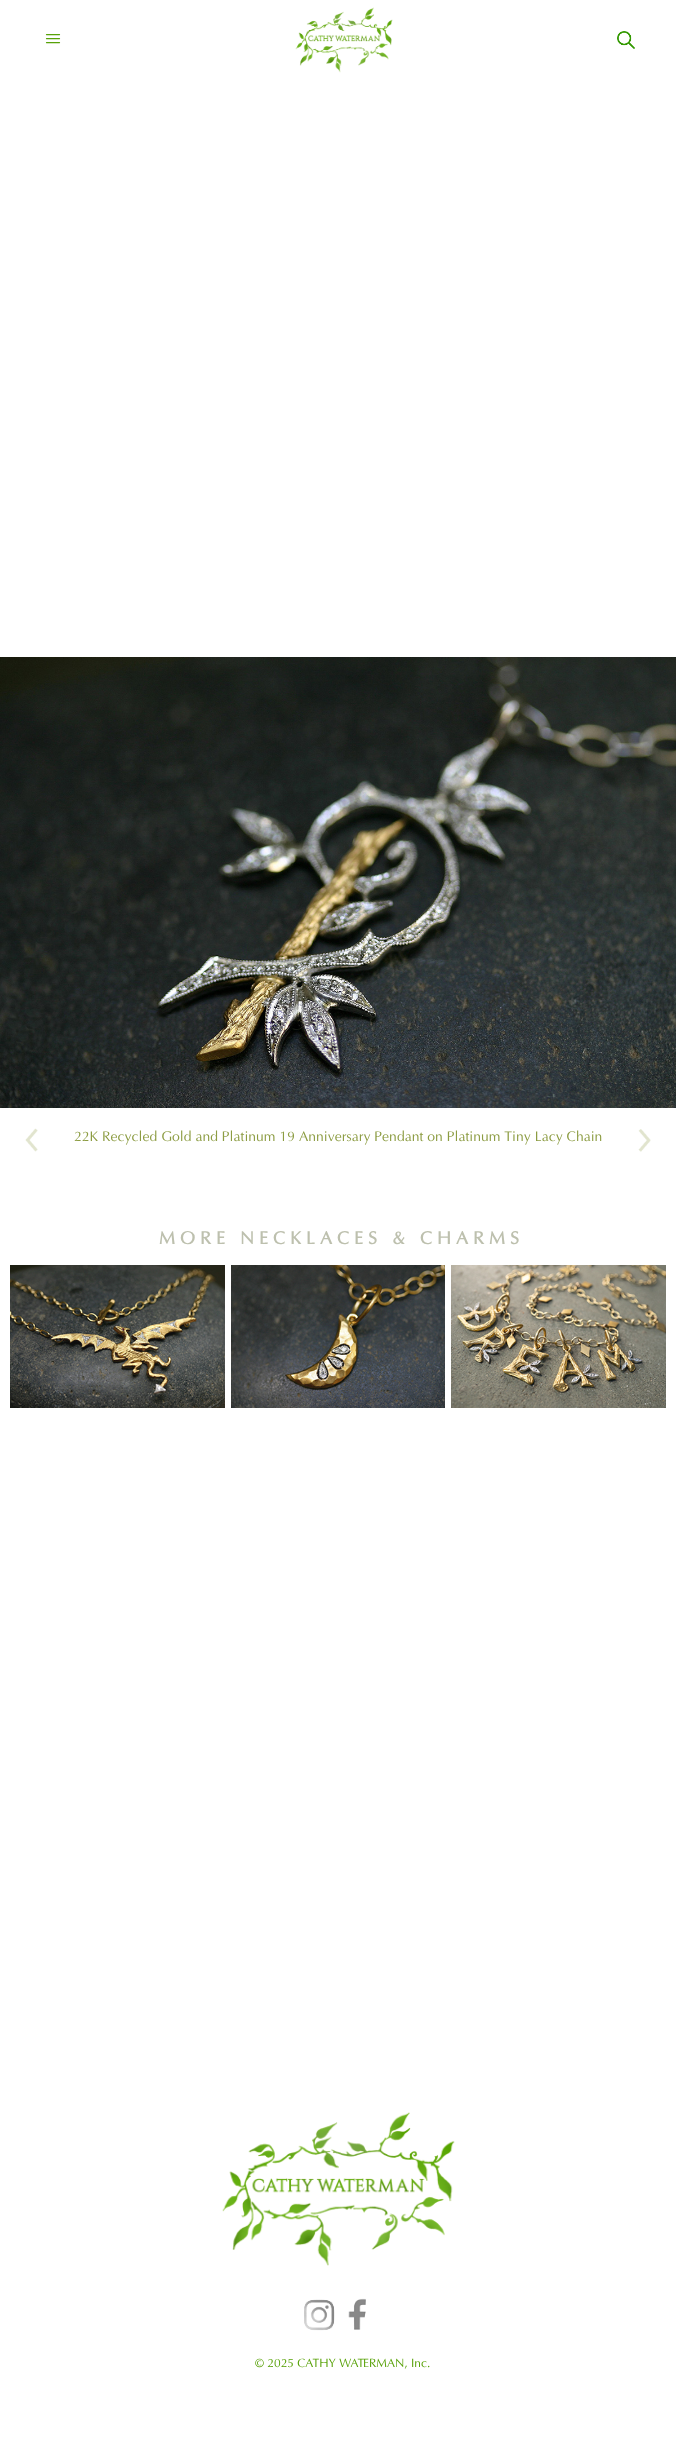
<!DOCTYPE html>
<meta charset="utf-8">
<style>body { margin: 0 } canvas { display: block }</style>
<canvas id="canvas" width="676" height="2452"></canvas>
<img id="img1" src="img_01.png" hidden>
<img id="img2" src="img_02.png" hidden>
<img id="img3" src="img_03.png" hidden>
<img id="img4" src="img_04.png" hidden>
<img id="img5" src="img_05.png" hidden>
<img id="img6" src="img_06.png" hidden>
<img id="img7" src="img_07.png" hidden>
<img id="img8" src="img_08.png" hidden>
<img id="img9" src="img_09.png" hidden>
<img id="img10" src="img_10.png" hidden>
<img id="img11" src="img_11.png" hidden>
<img id="img12" src="img_12.png" hidden>
<script>
window.onload = function () {
	const canvas = document.getElementById("canvas");
	const ctx = canvas.getContext("2d");
	ctx.miterLimit = 4;
	ctx.fontKerning = "normal";
	function txt(s, x, y) {
		ctx.fillText(s, x, y);
	}
	function fill(x, y, w, h) {
		ctx.fillRect(x, y, w, h);
	}
	function img(id, x, y, w, h) {
		ctx.drawImage(document.getElementById(id), x, y, w, h);
	}

	ctx.fillStyle = "#FFFFFF";
	fill(0, 0, 676, 2452);
	img("img1", 45, 34, 16, 10);
	img("img2", 295, 7, 98, 66);
	img("img3", 617, 31, 18, 18);
	img("img4", 0, 657, 676, 451);
	img("img5", 25, 1128, 13, 24);
	img("img6", 638, 1129, 13, 23);
	img("img7", 10, 1265, 215, 143);
	img("img8", 231, 1265, 214, 143);
	img("img9", 451, 1265, 215, 143);
	img("img10", 222, 2112, 233, 154);
	img("img11", 304, 2299, 31, 32);
	img("img12", 348, 2298, 18, 32);
	ctx.font = "14px Optima";
	ctx.fillStyle = "#8C9C42";
	txt("22K Recycled Gold and Platinum 19 Anniversary Pendant on Platinum Tiny Lacy Chain", 74, 1141);
	ctx.letterSpacing = "5px";
	ctx.font = "bold 18px Optima";
	ctx.fillStyle = "#BDC0AE";
	txt("MORE NECKLACES & CHARMS", 159, 1244);
	ctx.letterSpacing = "0px";
	ctx.font = "12px Optima";
	ctx.fillStyle = "#59A209";
	txt("© 2025 CATHY WATERMAN, Inc.", 255, 2367);
};
</script>
